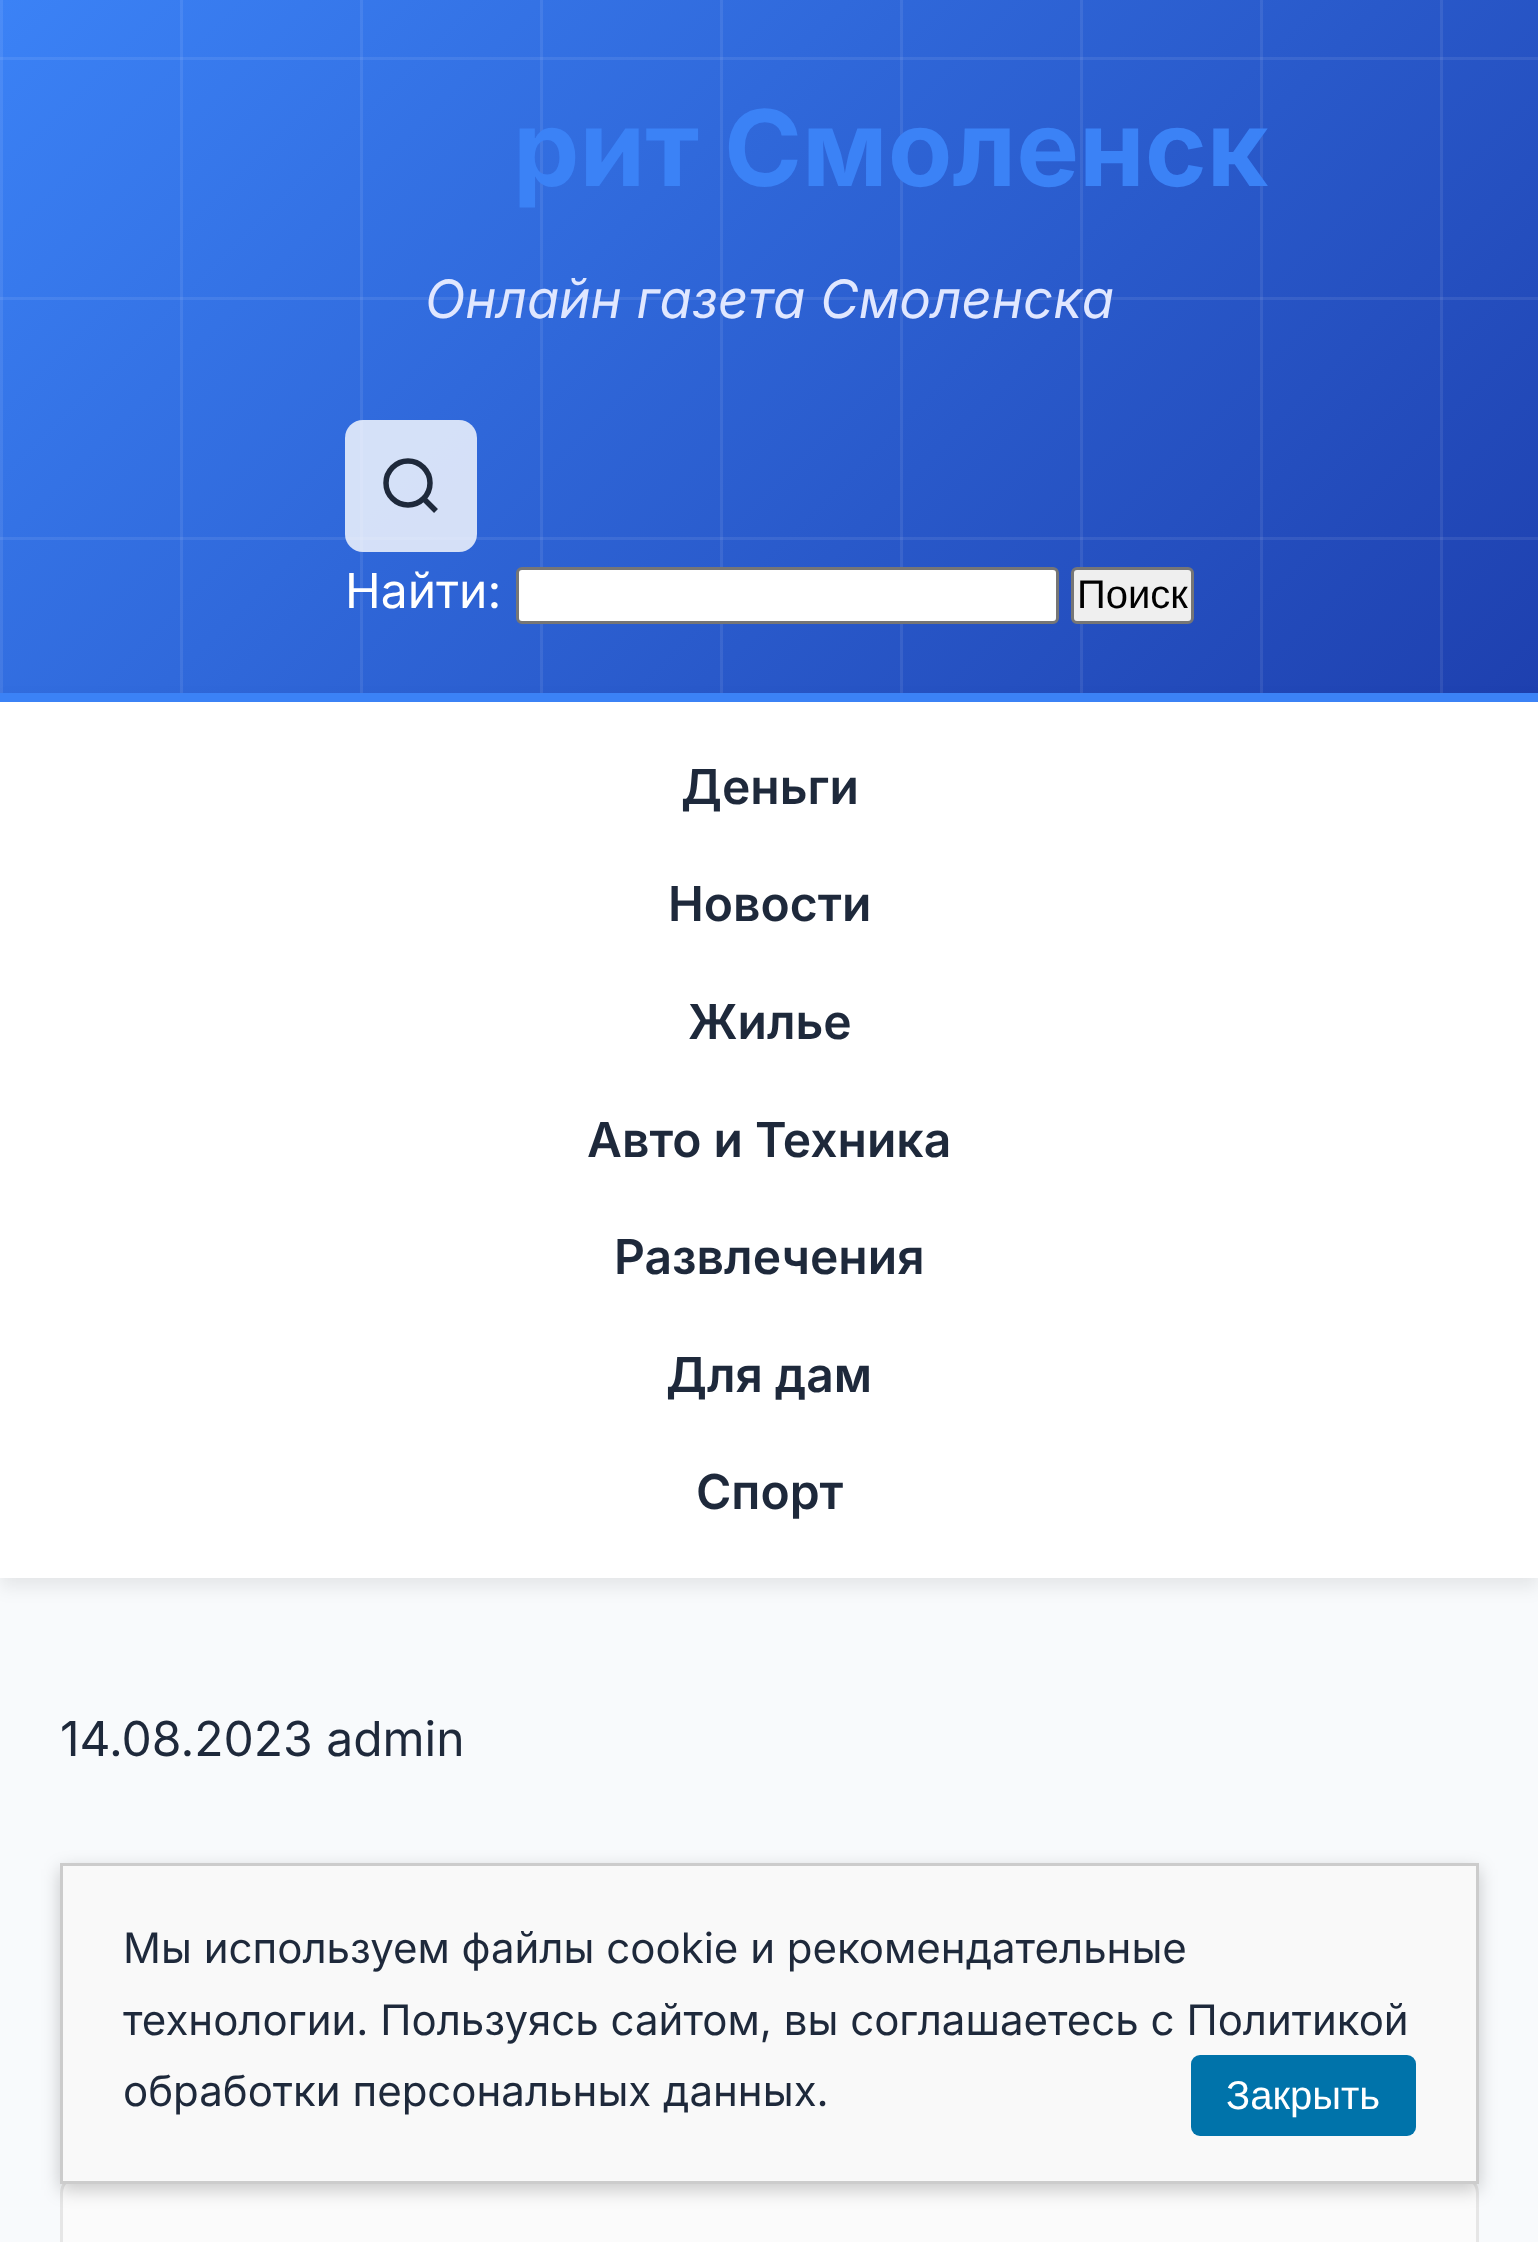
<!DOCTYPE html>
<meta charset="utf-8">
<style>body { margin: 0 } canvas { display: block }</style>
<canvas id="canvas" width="1538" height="2242"></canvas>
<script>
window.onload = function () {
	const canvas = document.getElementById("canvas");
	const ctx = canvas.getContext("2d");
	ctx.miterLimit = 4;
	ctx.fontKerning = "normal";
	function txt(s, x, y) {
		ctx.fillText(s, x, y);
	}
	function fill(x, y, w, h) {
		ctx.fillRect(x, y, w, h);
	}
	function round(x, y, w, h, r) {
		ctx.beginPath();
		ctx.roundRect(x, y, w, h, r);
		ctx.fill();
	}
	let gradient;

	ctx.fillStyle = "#F8FAFC";
	fill(0, 0, 1538, 2242);
	gradient = ctx.createLinearGradient(211, -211, 1328, 905);
	gradient.addColorStop(0, "#3B82F6");
	gradient.addColorStop(1, "#1E40AF");
	ctx.fillStyle = gradient;
	fill(3, 0, 1535, 693);
	gradient = ctx.createLinearGradient(211, -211, 1328, 905);
	gradient.addColorStop(0, "#4B8CF7");
	gradient.addColorStop(1, "#304FB5");
	ctx.fillStyle = gradient;
	fill(1440, 0, 3, 693);
	fill(1260, 0, 3, 693);
	fill(1080, 0, 3, 693);
	fill(900, 0, 3, 693);
	fill(720, 0, 3, 693);
	fill(540, 0, 3, 693);
	fill(360, 0, 3, 693);
	fill(180, 0, 3, 693);
	fill(0, 0, 3, 693);
	fill(0, 537, 1538, 3);
	gradient = ctx.createLinearGradient(211, -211, 1328, 905);
	gradient.addColorStop(0, "#5995F8");
	gradient.addColorStop(1, "#415DBB");
	ctx.fillStyle = gradient;
	fill(1440, 537, 3, 3);
	fill(1260, 537, 3, 3);
	fill(1080, 537, 3, 3);
	fill(900, 537, 3, 3);
	fill(720, 537, 3, 3);
	fill(540, 537, 3, 3);
	fill(360, 537, 3, 3);
	fill(180, 537, 3, 3);
	fill(0, 537, 3, 3);
	gradient = ctx.createLinearGradient(211, -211, 1328, 905);
	gradient.addColorStop(0, "#4B8CF7");
	gradient.addColorStop(1, "#304FB5");
	ctx.fillStyle = gradient;
	fill(0, 297, 1538, 3);
	gradient = ctx.createLinearGradient(211, -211, 1328, 905);
	gradient.addColorStop(0, "#5995F8");
	gradient.addColorStop(1, "#415DBB");
	ctx.fillStyle = gradient;
	fill(1440, 297, 3, 3);
	fill(1260, 297, 3, 3);
	fill(1080, 297, 3, 3);
	fill(900, 297, 3, 3);
	fill(720, 297, 3, 3);
	fill(540, 297, 3, 3);
	fill(360, 297, 3, 3);
	fill(180, 297, 3, 3);
	fill(0, 297, 3, 3);
	gradient = ctx.createLinearGradient(211, -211, 1328, 905);
	gradient.addColorStop(0, "#4B8CF7");
	gradient.addColorStop(1, "#304FB5");
	ctx.fillStyle = gradient;
	fill(0, 57, 1538, 3);
	gradient = ctx.createLinearGradient(211, -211, 1328, 905);
	gradient.addColorStop(0, "#5995F8");
	gradient.addColorStop(1, "#415DBB");
	ctx.fillStyle = gradient;
	fill(1440, 57, 3, 3);
	fill(1260, 57, 3, 3);
	fill(1080, 57, 3, 3);
	fill(900, 57, 3, 3);
	fill(720, 57, 3, 3);
	fill(540, 57, 3, 3);
	fill(360, 57, 3, 3);
	fill(180, 57, 3, 3);
	fill(0, 57, 3, 3);
	ctx.fillStyle = "rgba(255, 255, 255, 0.8)";
	round(345, 420, 132, 132, 18);
	ctx.beginPath();
	ctx.arc(408, 483, 22, 0, Math.PI * 2);
	ctx.strokeStyle = "#1E293B";
	ctx.lineWidth = 5.5;
	ctx.stroke();
	ctx.beginPath();
	ctx.moveTo(436, 511);
	ctx.lineTo(424, 499);
	ctx.stroke();
	ctx.fillStyle = "#FFFFFF";
	ctx.beginPath();
	ctx.roundRect(517.5, 568.5, 540, 54, 4.5);
	ctx.fill();
	ctx.strokeStyle = "#767676";
	ctx.lineWidth = 3;
	ctx.stroke();
	ctx.fillStyle = "#EFEFEF";
	ctx.beginPath();
	ctx.roundRect(1072.5, 568.5, 120, 54, 4.5);
	ctx.fill();
	ctx.stroke();
	ctx.fillStyle = "rgba(0, 0, 0, 0.08)";
	ctx.filter = "blur(9px)";
	ctx.beginPath();
	ctx.rect(0, 702, 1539, 885);
	ctx.fill();
	ctx.filter = "none";
	ctx.fillStyle = "#FFFFFF";
	fill(0, 702, 1538, 876);
	ctx.fillStyle = "#3B82F6";
	fill(0, 693, 1538, 9);
	ctx.fillStyle = "#FBFBFB";
	ctx.beginPath();
	ctx.roundRect(61.5, 2176.5, 1416, 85, 16.5);
	ctx.fill();
	ctx.strokeStyle = "#E6E6E6";
	ctx.stroke();
	ctx.fillStyle = "rgba(0, 0, 0, 0.2)";
	ctx.filter = "blur(9px)";
	ctx.beginPath();
	ctx.rect(60, 1869, 1419, 321);
	ctx.fill();
	ctx.filter = "none";
	ctx.fillStyle = "#F9F9F9";
	ctx.beginPath();
	ctx.rect(61.5, 1864.5, 1416, 318);
	ctx.fill();
	ctx.strokeStyle = "#CCCCCC";
	ctx.stroke();
	ctx.fillStyle = "#0073AA";
	round(1191, 2055, 225, 81, 9);
	ctx.font = "bold 105.5px Inter";
	ctx.fillStyle = "#3B82F6";
	txt("рит Смоленск", 513, 186);
	ctx.font = "italic 52.75px Inter";
	ctx.fillStyle = "#E0E7FF";
	txt("Онлайн газета Смоленска", 425, 318);
	ctx.font = "48px Inter";
	ctx.fillStyle = "#FFFFFF";
	txt("Найти:", 345, 608);
	ctx.font = "40px Liberation Sans";
	ctx.fillStyle = "#000000";
	txt("Поиск", 1077, 608);
	ctx.font = "600 48px Inter";
	ctx.fillStyle = "#1E293B";
	txt("Деньги", 681, 804);
	txt("Новости", 668, 921);
	txt("Жилье", 688, 1039);
	txt("Авто и Техника", 587, 1157);
	txt("Развлечения", 614, 1274);
	txt("Для дам", 666, 1392);
	txt("Спорт", 696, 1509);
	ctx.font = "48px Inter";
	txt("14.08.2023 admin", 60, 1756);
	ctx.font = "42px Inter";
	txt("Мы используем файлы cookie и рекомендательные", 123, 1963);
	txt("технологии. Пользуясь сайтом, вы соглашаетесь с Политикой", 123, 2035);
	txt("обработки персональных данных.", 123, 2106);
	ctx.font = "40px Liberation Sans";
	ctx.fillStyle = "#FFFFFF";
	txt("Закрыть", 1226, 2109);
};
</script>
